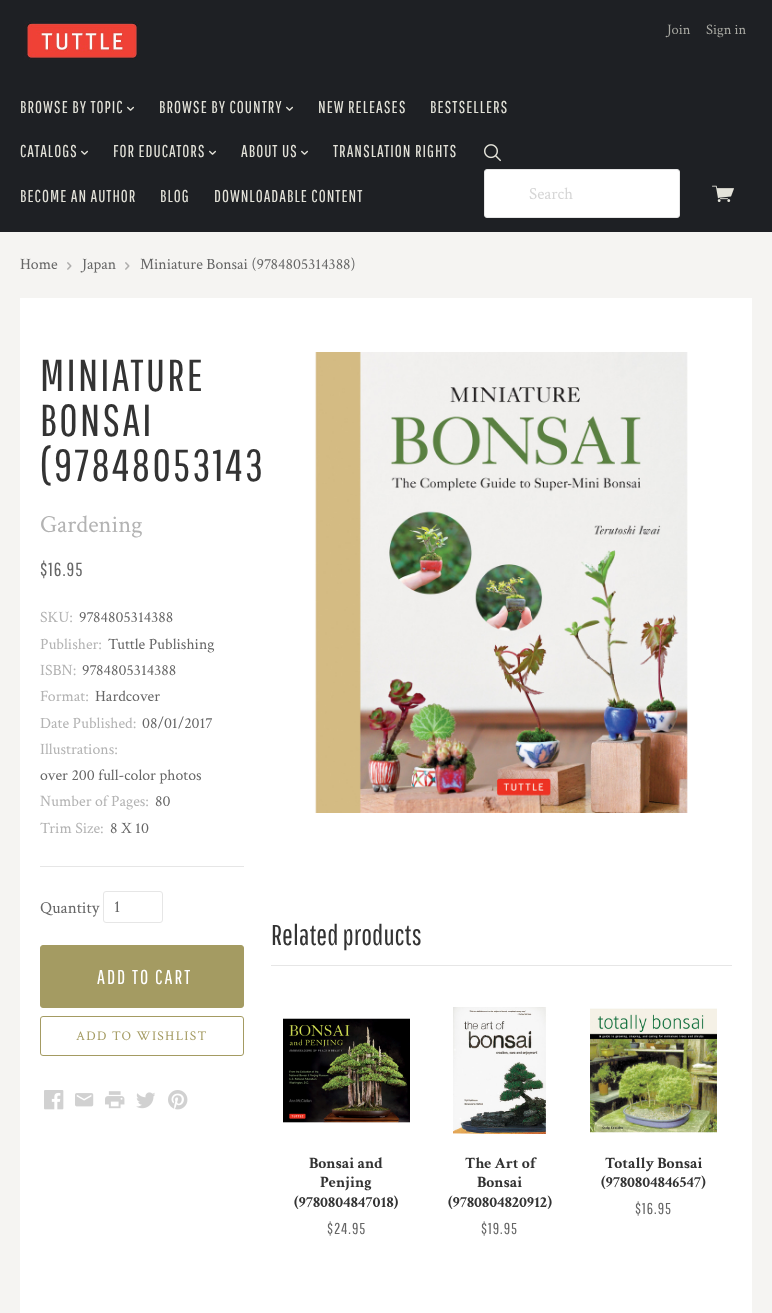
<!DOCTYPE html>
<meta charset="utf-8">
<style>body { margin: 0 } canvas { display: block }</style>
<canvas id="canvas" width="772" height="1313"></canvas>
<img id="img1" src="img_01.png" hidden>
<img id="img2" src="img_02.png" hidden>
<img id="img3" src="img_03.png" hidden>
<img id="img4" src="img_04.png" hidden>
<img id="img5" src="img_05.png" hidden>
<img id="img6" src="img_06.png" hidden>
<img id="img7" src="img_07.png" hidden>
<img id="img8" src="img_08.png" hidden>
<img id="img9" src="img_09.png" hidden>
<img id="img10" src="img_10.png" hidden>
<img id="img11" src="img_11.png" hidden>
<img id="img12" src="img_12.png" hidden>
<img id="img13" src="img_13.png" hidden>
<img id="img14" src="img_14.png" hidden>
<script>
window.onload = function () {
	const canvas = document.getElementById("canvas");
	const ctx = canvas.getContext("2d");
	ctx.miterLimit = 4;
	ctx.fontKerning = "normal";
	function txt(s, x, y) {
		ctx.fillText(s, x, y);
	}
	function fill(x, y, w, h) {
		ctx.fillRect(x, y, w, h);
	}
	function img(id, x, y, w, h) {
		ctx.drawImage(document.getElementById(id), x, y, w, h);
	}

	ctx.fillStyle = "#F5F4F2";
	fill(0, 0, 772, 1313);
	ctx.fillStyle = "#1E2024";
	fill(0, 0, 772, 232);
	img("img1", 24, 20, 116, 40);
	img("img2", 712, 185, 22, 17);
	img("img3", 127, 106, 7, 5);
	img("img3", 286, 106, 7, 5);
	img("img3", 81, 150, 7, 5);
	img("img3", 209, 150, 7, 5);
	img("img3", 301, 150, 7, 5);
	img("img4", 484, 144, 17, 18);
	ctx.fillStyle = "#FFFFFF";
	ctx.beginPath();
	ctx.roundRect(484.5, 169.5, 195, 48, 2.5);
	ctx.fill();
	ctx.strokeStyle = "#E6E6E6";
	ctx.stroke();
	img("img5", 67, 262, 5, 8);
	img("img5", 125, 262, 5, 8);
	fill(20, 298, 732, 1015);
	ctx.fillStyle = "#E6E6E6";
	fill(40, 866, 204, 1);
	ctx.beginPath();
	ctx.roundRect(103.5, 891.5, 59, 31, 2.5);
	ctx.stroke();
	ctx.fillStyle = "#A49B62";
	ctx.beginPath();
	ctx.roundRect(40.5, 945.5, 203, 62, 2.5);
	ctx.fill();
	ctx.strokeStyle = "#A49B62";
	ctx.stroke();
	ctx.beginPath();
	ctx.roundRect(40.5, 1016.5, 203, 39, 2.5);
	ctx.stroke();
	img("img6", 44, 1090, 20, 20);
	img("img7", 75, 1093, 19, 14);
	img("img8", 105, 1091, 20, 18);
	img("img9", 136, 1092, 19, 17);
	img("img10", 168, 1090, 20, 20);
	img("img11", 271, 352, 417, 461);
	ctx.fillStyle = "#E6E6E6";
	fill(271, 965, 461, 1);
	img("img12", 283, 1018, 127, 105);
	img("img13", 453, 1007, 95, 127);
	img("img14", 590, 1008, 127, 125);
	ctx.font = "14.5px Crimson Text";
	ctx.fillStyle = "#A9A9A3";
	txt("Join", 667, 34);
	txt("Sign in", 706, 34);
	ctx.letterSpacing = "1px";
	ctx.font = "17px Pathway Gothic One";
	ctx.fillStyle = "#E4E3DA";
	txt("BROWSE BY TOPIC", 20, 113);
	txt("BROWSE BY COUNTRY", 159, 113);
	txt("NEW RELEASES", 318, 113);
	txt("BESTSELLERS", 430, 113);
	txt("CATALOGS", 20, 157);
	txt("FOR EDUCATORS", 113, 157);
	txt("ABOUT US", 241, 157);
	txt("TRANSLATION RIGHTS", 333, 157);
	txt("BECOME AN AUTHOR", 20, 202);
	txt("BLOG", 160, 202);
	txt("DOWNLOADABLE CONTENT", 214, 202);
	ctx.letterSpacing = "0px";
	ctx.font = "17px Crimson Text";
	ctx.fillStyle = "#D6D6D6";
	txt("Search", 529, 199);
	ctx.font = "15.75px Crimson Text";
	ctx.fillStyle = "#666666";
	txt("Home", 20, 269);
	txt("Japan", 82, 269);
	txt("Miniature Bonsai (9784805314388)", 140, 269);
	ctx.letterSpacing = "2.25px";
	ctx.font = "44.75px Pathway Gothic One";
	ctx.fillStyle = "#333333";
	txt("MINIATURE", 40, 391);
	txt("BONSAI", 40, 436);
	txt("(97848053143", 40, 481);
	ctx.letterSpacing = "0px";
	ctx.font = "24.5px Crimson Text";
	ctx.fillStyle = "#B3B3B3";
	txt("Gardening", 40, 532);
	ctx.letterSpacing = "1px";
	ctx.font = "19px Pathway Gothic One";
	ctx.fillStyle = "#666666";
	txt("$16.95", 40, 576);
	ctx.letterSpacing = "0px";
	ctx.font = "15.75px Crimson Text";
	ctx.fillStyle = "#B3B3B3";
	txt("SKU:", 40, 622);
	ctx.fillStyle = "#666666";
	txt("9784805314388", 79, 622);
	ctx.fillStyle = "#B3B3B3";
	txt("Publisher:", 40, 649);
	ctx.fillStyle = "#666666";
	txt("Tuttle Publishing", 108, 649);
	ctx.fillStyle = "#B3B3B3";
	txt("ISBN:", 40, 675);
	ctx.fillStyle = "#666666";
	txt("9784805314388", 82, 675);
	ctx.fillStyle = "#B3B3B3";
	txt("Format:", 40, 701);
	ctx.fillStyle = "#666666";
	txt("Hardcover", 95, 701);
	ctx.fillStyle = "#B3B3B3";
	txt("Date Published:", 40, 728);
	ctx.fillStyle = "#666666";
	txt("08/01/2017", 142, 728);
	ctx.fillStyle = "#B3B3B3";
	txt("Illustrations:", 40, 754);
	ctx.fillStyle = "#666666";
	txt("over 200 full-color photos", 40, 780);
	ctx.fillStyle = "#B3B3B3";
	txt("Number of Pages:", 40, 806);
	ctx.fillStyle = "#666666";
	txt("80", 155, 806);
	ctx.fillStyle = "#B3B3B3";
	txt("Trim Size:", 40, 833);
	ctx.fillStyle = "#666666";
	txt("8 X 10", 110, 833);
	ctx.font = "17px Crimson Text";
	txt("Quantity", 40, 913);
	txt("1", 114, 912);
	ctx.letterSpacing = "2px";
	ctx.font = "20px Pathway Gothic One";
	ctx.fillStyle = "#FFFFFF";
	txt("ADD TO CART", 97, 984);
	ctx.letterSpacing = "1.3px";
	ctx.font = "13.4px Crimson Text";
	ctx.fillStyle = "#A49B62";
	txt("ADD TO WISHLIST", 76, 1040);
	ctx.letterSpacing = "0px";
	ctx.font = "28.75px Pathway Gothic One";
	ctx.fillStyle = "#333333";
	txt("Related products", 271, 945);
	ctx.font = "bold 15.75px Crimson Text";
	txt("Bonsai and", 309, 1168);
	txt("Penjing", 320, 1187);
	txt("(9780804847018)", 294, 1207);
	ctx.letterSpacing = "1px";
	ctx.font = "15.75px Pathway Gothic One";
	ctx.fillStyle = "#666666";
	txt("$24.95", 327, 1234);
	ctx.letterSpacing = "0px";
	ctx.font = "bold 15.75px Crimson Text";
	ctx.fillStyle = "#333333";
	txt("The Art of", 465, 1168);
	txt("Bonsai", 477, 1187);
	txt("(9780804820912)", 448, 1207);
	ctx.letterSpacing = "1px";
	ctx.font = "15.75px Pathway Gothic One";
	ctx.fillStyle = "#666666";
	txt("$19.95", 481, 1234);
	ctx.letterSpacing = "0px";
	ctx.font = "bold 15.75px Crimson Text";
	ctx.fillStyle = "#333333";
	txt("Totally Bonsai", 605, 1168);
	txt("(9780804846547)", 601, 1187);
	ctx.letterSpacing = "1px";
	ctx.font = "15.75px Pathway Gothic One";
	ctx.fillStyle = "#666666";
	txt("$16.95", 635, 1214);
};
</script>
